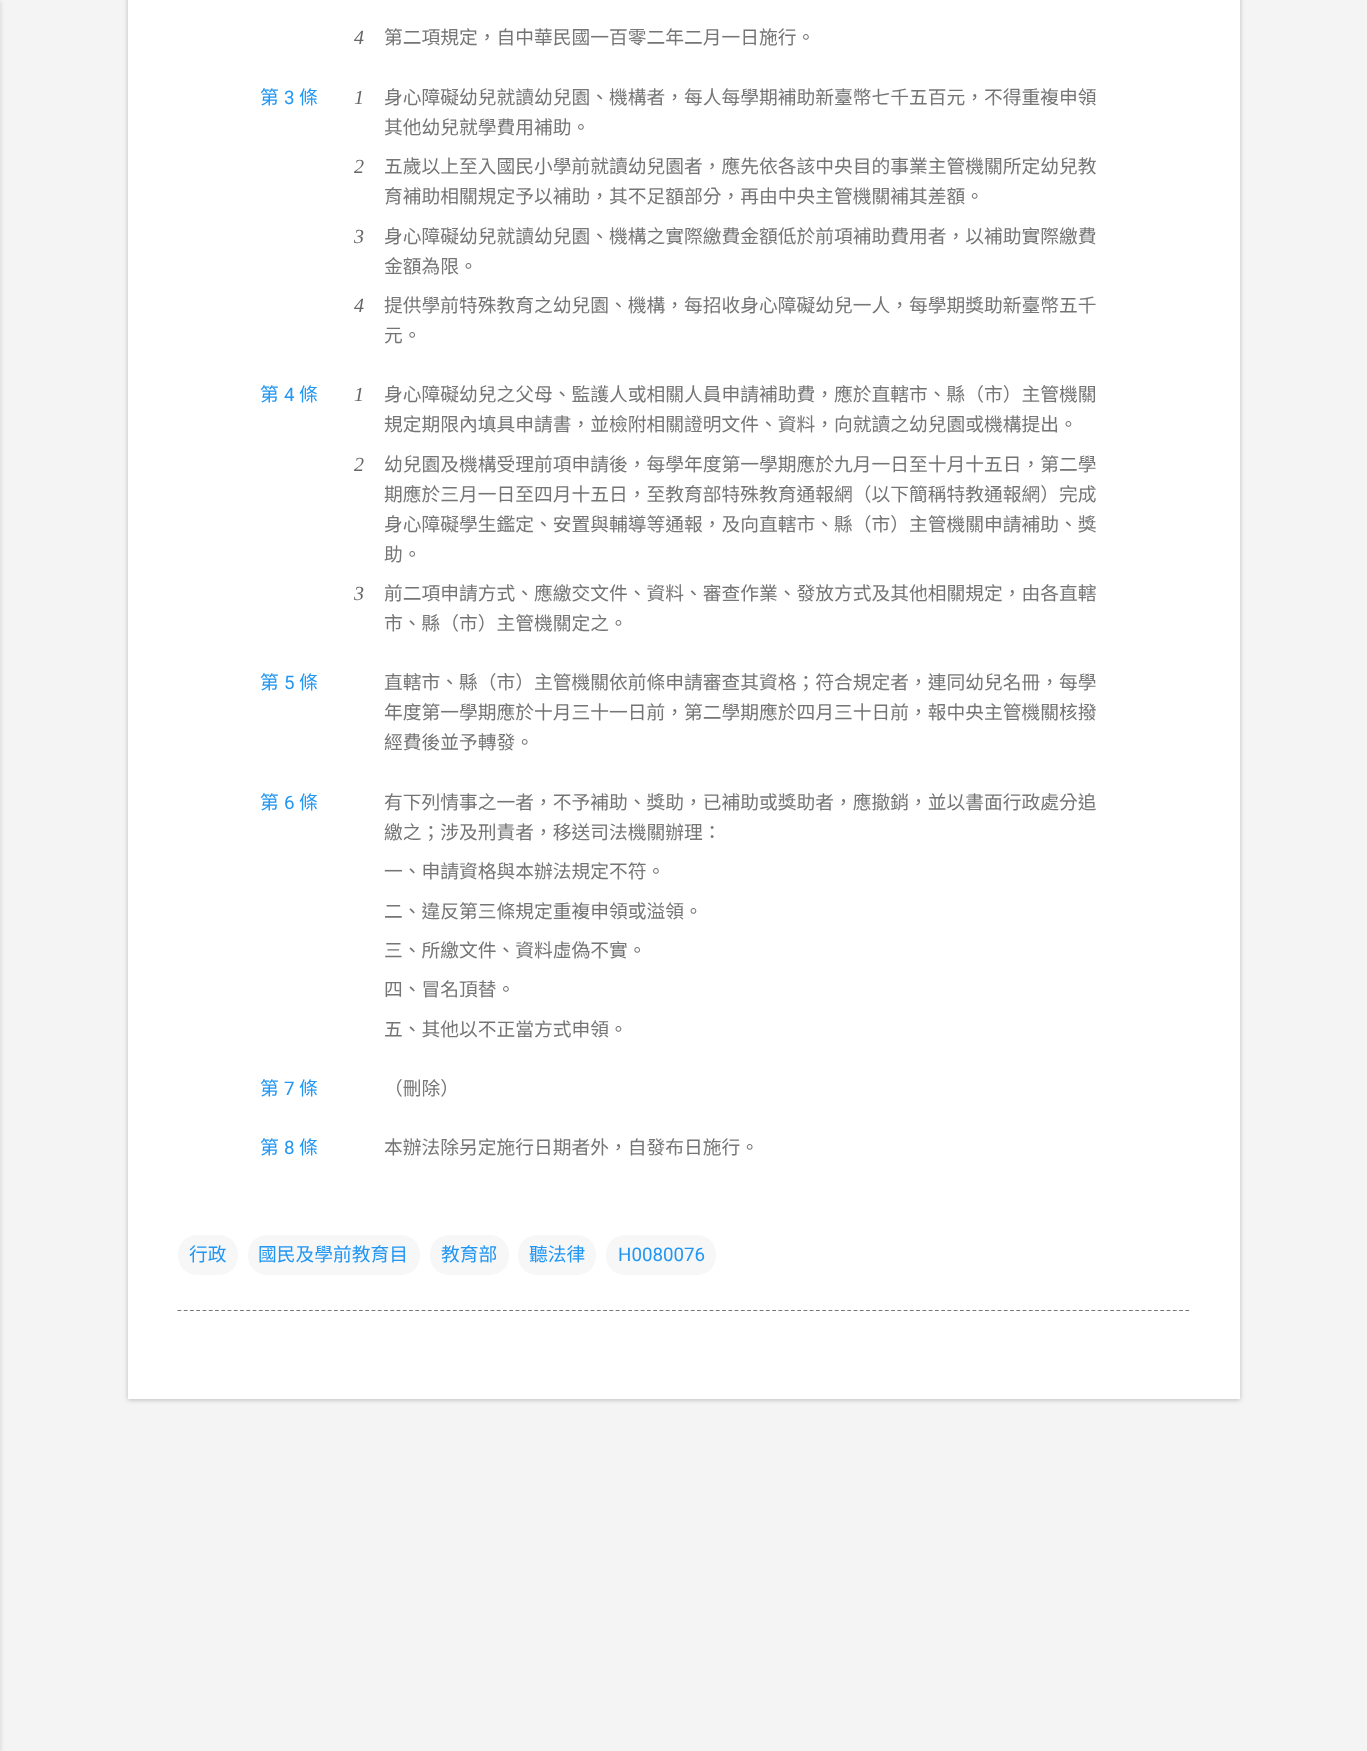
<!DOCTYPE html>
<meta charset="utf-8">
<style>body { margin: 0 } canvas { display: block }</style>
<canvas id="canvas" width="1367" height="1751"></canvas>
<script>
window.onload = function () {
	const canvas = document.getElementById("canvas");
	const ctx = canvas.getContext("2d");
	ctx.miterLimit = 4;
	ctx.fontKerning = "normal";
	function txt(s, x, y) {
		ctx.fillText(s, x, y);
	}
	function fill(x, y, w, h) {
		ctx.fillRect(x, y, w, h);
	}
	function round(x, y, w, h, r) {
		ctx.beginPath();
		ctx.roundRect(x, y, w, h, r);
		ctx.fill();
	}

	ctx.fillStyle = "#F4F4F4";
	fill(0, 0, 1367, 1751);
	ctx.fillStyle = "rgba(0, 0, 0, 0.1)";
	ctx.filter = "blur(2px)";
	ctx.beginPath();
	ctx.rect(-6, 1, 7, 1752);
	ctx.fill();
	ctx.filter = "none";
	ctx.fillStyle = "rgba(60, 64, 67, 0.3)";
	ctx.filter = "blur(2.5px)";
	ctx.beginPath();
	ctx.rect(128, -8, 1112, 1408);
	ctx.fill();
	ctx.filter = "none";
	ctx.fillStyle = "#FFFFFF";
	fill(128, 0, 1112, 1399);
	ctx.fillStyle = "#F7F7F7";
	round(178, 1235, 60, 40, 19);
	round(248, 1235, 172, 40, 19);
	round(430, 1235, 79, 40, 19);
	round(518, 1235, 78, 40, 19);
	round(606, 1235, 110, 40, 19);
	ctx.beginPath();
	ctx.moveTo(177.5, 1310.5);
	ctx.lineTo(1190, 1310.5);
	ctx.strokeStyle = "#757575";
	ctx.lineWidth = 1.2;
	ctx.setLineDash([3.75, 2.51]);
	ctx.stroke();
	ctx.font = "italic 20px Liberation Serif";
	ctx.fillStyle = "#666666";
	txt("4", 354, 44);
	ctx.font = "18.75px Noto Sans CJK TC";
	ctx.fillStyle = "#757575";
	txt("第二項規定，自中華民國一百零二年二月一日施行。", 384, 44);
	ctx.fillStyle = "#2196F3";
	txt("第", 260, 104);
	ctx.font = "18.75px Roboto";
	txt("3", 284, 104);
	ctx.font = "18.75px Noto Sans CJK TC";
	txt("條", 299, 104);
	ctx.font = "italic 20px Liberation Serif";
	ctx.fillStyle = "#666666";
	txt("1", 354, 104);
	ctx.font = "18.75px Noto Sans CJK TC";
	ctx.fillStyle = "#757575";
	txt("身心障礙幼兒就讀幼兒園、機構者，每人每學期補助新臺幣七千五百元，不得重複申領", 384, 104);
	txt("其他幼兒就學費用補助。", 384, 134);
	ctx.font = "italic 20px Liberation Serif";
	ctx.fillStyle = "#666666";
	txt("2", 354, 173);
	ctx.font = "18.75px Noto Sans CJK TC";
	ctx.fillStyle = "#757575";
	txt("五歲以上至入國民小學前就讀幼兒園者，應先依各該中央目的事業主管機關所定幼兒教", 384, 173);
	txt("育補助相關規定予以補助，其不足額部分，再由中央主管機關補其差額。", 384, 203);
	ctx.font = "italic 20px Liberation Serif";
	ctx.fillStyle = "#666666";
	txt("3", 354, 243);
	ctx.font = "18.75px Noto Sans CJK TC";
	ctx.fillStyle = "#757575";
	txt("身心障礙幼兒就讀幼兒園、機構之實際繳費金額低於前項補助費用者，以補助實際繳費", 384, 243);
	txt("金額為限。", 384, 273);
	ctx.font = "italic 20px Liberation Serif";
	ctx.fillStyle = "#666666";
	txt("4", 354, 312);
	ctx.font = "18.75px Noto Sans CJK TC";
	ctx.fillStyle = "#757575";
	txt("提供學前特殊教育之幼兒園、機構，每招收身心障礙幼兒一人，每學期獎助新臺幣五千", 384, 312);
	txt("元。", 384, 342);
	ctx.fillStyle = "#2196F3";
	txt("第", 260, 401);
	ctx.font = "18.75px Roboto";
	txt("4", 284, 401);
	ctx.font = "18.75px Noto Sans CJK TC";
	txt("條", 299, 401);
	ctx.font = "italic 20px Liberation Serif";
	ctx.fillStyle = "#666666";
	txt("1", 354, 401);
	ctx.font = "18.75px Noto Sans CJK TC";
	ctx.fillStyle = "#757575";
	txt("身心障礙幼兒之父母、監護人或相關人員申請補助費，應於直轄市、縣（市）主管機關", 384, 401);
	txt("規定期限內填具申請書，並檢附相關證明文件、資料，向就讀之幼兒園或機構提出。", 384, 431);
	ctx.font = "italic 20px Liberation Serif";
	ctx.fillStyle = "#666666";
	txt("2", 354, 471);
	ctx.font = "18.75px Noto Sans CJK TC";
	ctx.fillStyle = "#757575";
	txt("幼兒園及機構受理前項申請後，每學年度第一學期應於九月一日至十月十五日，第二學", 384, 471);
	txt("期應於三月一日至四月十五日，至教育部特殊教育通報網（以下簡稱特教通報網）完成", 384, 501);
	txt("身心障礙學生鑑定、安置與輔導等通報，及向直轄市、縣（市）主管機關申請補助、獎", 384, 531);
	txt("助。", 384, 561);
	ctx.font = "italic 20px Liberation Serif";
	ctx.fillStyle = "#666666";
	txt("3", 354, 600);
	ctx.font = "18.75px Noto Sans CJK TC";
	ctx.fillStyle = "#757575";
	txt("前二項申請方式、應繳交文件、資料、審查作業、發放方式及其他相關規定，由各直轄", 384, 600);
	txt("市、縣（市）主管機關定之。", 384, 630);
	ctx.fillStyle = "#2196F3";
	txt("第", 260, 689);
	ctx.font = "18.75px Roboto";
	txt("5", 284, 689);
	ctx.font = "18.75px Noto Sans CJK TC";
	txt("條", 299, 689);
	ctx.fillStyle = "#757575";
	txt("直轄市、縣（市）主管機關依前條申請審查其資格；符合規定者，連同幼兒名冊，每學", 384, 689);
	txt("年度第一學期應於十月三十一日前，第二學期應於四月三十日前，報中央主管機關核撥", 384, 719);
	txt("經費後並予轉發。", 384, 749);
	ctx.fillStyle = "#2196F3";
	txt("第", 260, 809);
	ctx.font = "18.75px Roboto";
	txt("6", 284, 809);
	ctx.font = "18.75px Noto Sans CJK TC";
	txt("條", 299, 809);
	ctx.fillStyle = "#757575";
	txt("有下列情事之一者，不予補助、獎助，已補助或獎助者，應撤銷，並以書面行政處分追", 384, 809);
	txt("繳之；涉及刑責者，移送司法機關辦理：", 384, 839);
	txt("一、申請資格與本辦法規定不符。", 384, 878);
	txt("二、違反第三條規定重複申領或溢領。", 384, 918);
	txt("三、所繳文件、資料虛偽不實。", 384, 957);
	txt("四、冒名頂替。", 384, 996);
	txt("五、其他以不正當方式申領。", 384, 1036);
	ctx.fillStyle = "#2196F3";
	txt("第", 260, 1095);
	ctx.font = "18.75px Roboto";
	txt("7", 284, 1095);
	ctx.font = "18.75px Noto Sans CJK TC";
	txt("條", 299, 1095);
	ctx.fillStyle = "#757575";
	txt("（刪除）", 384, 1095);
	ctx.fillStyle = "#2196F3";
	txt("第", 260, 1154);
	ctx.font = "18.75px Roboto";
	txt("8", 284, 1154);
	ctx.font = "18.75px Noto Sans CJK TC";
	txt("條", 299, 1154);
	ctx.fillStyle = "#757575";
	txt("本辦法除另定施行日期者外，自發布日施行。", 384, 1154);
	ctx.fillStyle = "#2196F3";
	txt("行政", 189, 1261);
	txt("國民及學前教育目", 258, 1261);
	txt("教育部", 441, 1261);
	txt("聽法律", 529, 1261);
	ctx.font = "18.75px Roboto";
	txt("H0080076", 618, 1261);
};
</script>
